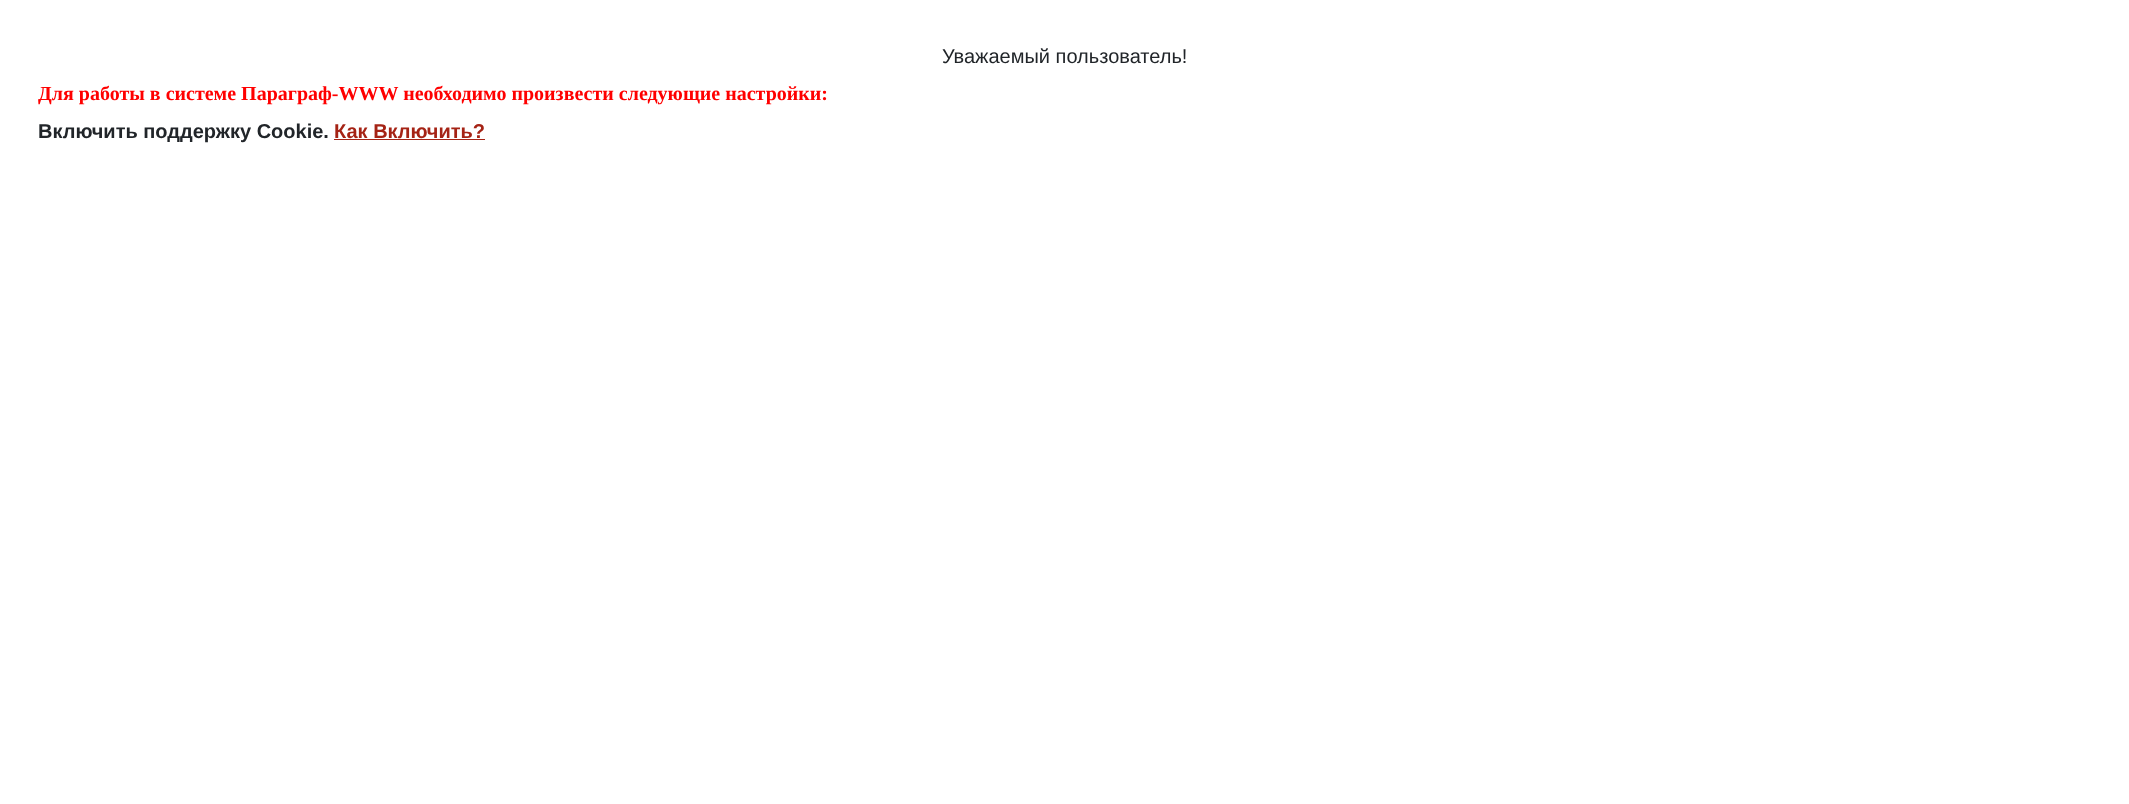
<!DOCTYPE html>
<meta charset="utf-8">
<style>body { margin: 0 } canvas { display: block }</style>
<canvas id="canvas" width="2129" height="804"></canvas>
<script>
window.onload = function () {
	const canvas = document.getElementById("canvas");
	const ctx = canvas.getContext("2d");
	ctx.miterLimit = 4;
	ctx.fontKerning = "normal";
	function txt(s, x, y) {
		ctx.fillText(s, x, y);
	}
	function fill(x, y, w, h) {
		ctx.fillRect(x, y, w, h);
	}

	ctx.fillStyle = "#FFFFFF";
	fill(0, 0, 2129, 804);
	ctx.fillStyle = "#A52315";
	fill(334, 139, 151, 1);
	ctx.font = "20px Liberation Sans";
	ctx.fillStyle = "#212529";
	txt("Уважаемый пользователь!", 942, 63);
	ctx.font = "bold 20px Liberation Serif";
	ctx.fillStyle = "#FF0000";
	txt("Для работы в системе Параграф-WWW необходимо произвести следующие настройки:", 38, 100);
	ctx.font = "bold 20px Liberation Sans";
	ctx.fillStyle = "#212529";
	txt("Включить поддержку Cookie.", 38, 138);
	ctx.fillStyle = "#A52315";
	txt("Как Включить?", 334, 138);
};
</script>
